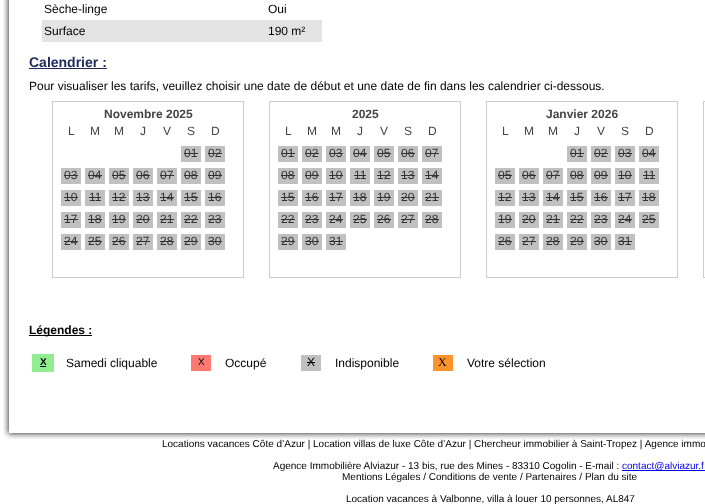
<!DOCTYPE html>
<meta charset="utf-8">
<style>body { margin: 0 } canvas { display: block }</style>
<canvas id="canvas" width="705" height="504"></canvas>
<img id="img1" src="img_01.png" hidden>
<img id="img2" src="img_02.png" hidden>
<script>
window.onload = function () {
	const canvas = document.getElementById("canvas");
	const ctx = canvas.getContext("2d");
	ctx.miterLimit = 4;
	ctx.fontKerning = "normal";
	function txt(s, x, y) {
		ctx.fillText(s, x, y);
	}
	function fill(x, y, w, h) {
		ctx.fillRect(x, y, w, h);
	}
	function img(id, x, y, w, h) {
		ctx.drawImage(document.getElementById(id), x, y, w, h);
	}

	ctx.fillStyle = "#FFFFFF";
	fill(0, 0, 705, 504);
	img("img1", 3, 0, 6, 428);
	ctx.fillStyle = "#E3E3E3";
	fill(42, 20, 280, 22);
	ctx.fillStyle = "#1F295C";
	fill(29, 68, 78, 1);
	ctx.strokeStyle = "#CCCCCC";
	ctx.strokeRect(52.5, 101.5, 191, 176);
	ctx.fillStyle = "#C0C0C0";
	fill(181, 146, 20, 16);
	ctx.fillStyle = "#333333";
	fill(184, 153, 14, 1);
	ctx.fillStyle = "#C0C0C0";
	fill(205, 146, 20, 16);
	ctx.fillStyle = "#333333";
	fill(208, 153, 14, 1);
	ctx.fillStyle = "#C0C0C0";
	fill(61, 168, 20, 16);
	ctx.fillStyle = "#333333";
	fill(64, 175, 14, 1);
	ctx.fillStyle = "#C0C0C0";
	fill(85, 168, 20, 16);
	ctx.fillStyle = "#333333";
	fill(88, 175, 14, 1);
	ctx.fillStyle = "#C0C0C0";
	fill(109, 168, 20, 16);
	ctx.fillStyle = "#333333";
	fill(112, 175, 14, 1);
	ctx.fillStyle = "#C0C0C0";
	fill(133, 168, 20, 16);
	ctx.fillStyle = "#333333";
	fill(136, 175, 14, 1);
	ctx.fillStyle = "#C0C0C0";
	fill(157, 168, 20, 16);
	ctx.fillStyle = "#333333";
	fill(160, 175, 14, 1);
	ctx.fillStyle = "#C0C0C0";
	fill(181, 168, 20, 16);
	ctx.fillStyle = "#333333";
	fill(184, 175, 14, 1);
	ctx.fillStyle = "#C0C0C0";
	fill(205, 168, 20, 16);
	ctx.fillStyle = "#333333";
	fill(208, 175, 14, 1);
	ctx.fillStyle = "#C0C0C0";
	fill(61, 190, 20, 16);
	ctx.fillStyle = "#333333";
	fill(64, 197, 14, 1);
	ctx.fillStyle = "#C0C0C0";
	fill(85, 190, 20, 16);
	ctx.fillStyle = "#333333";
	fill(89, 197, 12, 1);
	ctx.fillStyle = "#C0C0C0";
	fill(109, 190, 20, 16);
	ctx.fillStyle = "#333333";
	fill(112, 197, 14, 1);
	ctx.fillStyle = "#C0C0C0";
	fill(133, 190, 20, 16);
	ctx.fillStyle = "#333333";
	fill(136, 197, 14, 1);
	ctx.fillStyle = "#C0C0C0";
	fill(157, 190, 20, 16);
	ctx.fillStyle = "#333333";
	fill(160, 197, 14, 1);
	ctx.fillStyle = "#C0C0C0";
	fill(181, 190, 20, 16);
	ctx.fillStyle = "#333333";
	fill(184, 197, 14, 1);
	ctx.fillStyle = "#C0C0C0";
	fill(205, 190, 20, 16);
	ctx.fillStyle = "#333333";
	fill(208, 197, 14, 1);
	ctx.fillStyle = "#C0C0C0";
	fill(61, 212, 20, 16);
	ctx.fillStyle = "#333333";
	fill(64, 219, 14, 1);
	ctx.fillStyle = "#C0C0C0";
	fill(85, 212, 20, 16);
	ctx.fillStyle = "#333333";
	fill(88, 219, 14, 1);
	ctx.fillStyle = "#C0C0C0";
	fill(109, 212, 20, 16);
	ctx.fillStyle = "#333333";
	fill(112, 219, 14, 1);
	ctx.fillStyle = "#C0C0C0";
	fill(133, 212, 20, 16);
	ctx.fillStyle = "#333333";
	fill(136, 219, 14, 1);
	ctx.fillStyle = "#C0C0C0";
	fill(157, 212, 20, 16);
	ctx.fillStyle = "#333333";
	fill(160, 219, 14, 1);
	ctx.fillStyle = "#C0C0C0";
	fill(181, 212, 20, 16);
	ctx.fillStyle = "#333333";
	fill(184, 219, 14, 1);
	ctx.fillStyle = "#C0C0C0";
	fill(205, 212, 20, 16);
	ctx.fillStyle = "#333333";
	fill(208, 219, 14, 1);
	ctx.fillStyle = "#C0C0C0";
	fill(61, 234, 20, 16);
	ctx.fillStyle = "#333333";
	fill(64, 241, 14, 1);
	ctx.fillStyle = "#C0C0C0";
	fill(85, 234, 20, 16);
	ctx.fillStyle = "#333333";
	fill(88, 241, 14, 1);
	ctx.fillStyle = "#C0C0C0";
	fill(109, 234, 20, 16);
	ctx.fillStyle = "#333333";
	fill(112, 241, 14, 1);
	ctx.fillStyle = "#C0C0C0";
	fill(133, 234, 20, 16);
	ctx.fillStyle = "#333333";
	fill(136, 241, 14, 1);
	ctx.fillStyle = "#C0C0C0";
	fill(157, 234, 20, 16);
	ctx.fillStyle = "#333333";
	fill(160, 241, 14, 1);
	ctx.fillStyle = "#C0C0C0";
	fill(181, 234, 20, 16);
	ctx.fillStyle = "#333333";
	fill(184, 241, 14, 1);
	ctx.fillStyle = "#C0C0C0";
	fill(205, 234, 20, 16);
	ctx.fillStyle = "#333333";
	fill(208, 241, 14, 1);
	ctx.strokeRect(269.5, 101.5, 191, 176);
	ctx.fillStyle = "#C0C0C0";
	fill(278, 146, 20, 16);
	ctx.fillStyle = "#333333";
	fill(281, 153, 14, 1);
	ctx.fillStyle = "#C0C0C0";
	fill(302, 146, 20, 16);
	ctx.fillStyle = "#333333";
	fill(305, 153, 14, 1);
	ctx.fillStyle = "#C0C0C0";
	fill(326, 146, 20, 16);
	ctx.fillStyle = "#333333";
	fill(329, 153, 14, 1);
	ctx.fillStyle = "#C0C0C0";
	fill(350, 146, 20, 16);
	ctx.fillStyle = "#333333";
	fill(353, 153, 14, 1);
	ctx.fillStyle = "#C0C0C0";
	fill(374, 146, 20, 16);
	ctx.fillStyle = "#333333";
	fill(377, 153, 14, 1);
	ctx.fillStyle = "#C0C0C0";
	fill(398, 146, 20, 16);
	ctx.fillStyle = "#333333";
	fill(401, 153, 14, 1);
	ctx.fillStyle = "#C0C0C0";
	fill(422, 146, 20, 16);
	ctx.fillStyle = "#333333";
	fill(425, 153, 14, 1);
	ctx.fillStyle = "#C0C0C0";
	fill(278, 168, 20, 16);
	ctx.fillStyle = "#333333";
	fill(281, 175, 14, 1);
	ctx.fillStyle = "#C0C0C0";
	fill(302, 168, 20, 16);
	ctx.fillStyle = "#333333";
	fill(305, 175, 14, 1);
	ctx.fillStyle = "#C0C0C0";
	fill(326, 168, 20, 16);
	ctx.fillStyle = "#333333";
	fill(329, 175, 14, 1);
	ctx.fillStyle = "#C0C0C0";
	fill(350, 168, 20, 16);
	ctx.fillStyle = "#333333";
	fill(354, 175, 12, 1);
	ctx.fillStyle = "#C0C0C0";
	fill(374, 168, 20, 16);
	ctx.fillStyle = "#333333";
	fill(377, 175, 14, 1);
	ctx.fillStyle = "#C0C0C0";
	fill(398, 168, 20, 16);
	ctx.fillStyle = "#333333";
	fill(401, 175, 14, 1);
	ctx.fillStyle = "#C0C0C0";
	fill(422, 168, 20, 16);
	ctx.fillStyle = "#333333";
	fill(425, 175, 14, 1);
	ctx.fillStyle = "#C0C0C0";
	fill(278, 190, 20, 16);
	ctx.fillStyle = "#333333";
	fill(281, 197, 14, 1);
	ctx.fillStyle = "#C0C0C0";
	fill(302, 190, 20, 16);
	ctx.fillStyle = "#333333";
	fill(305, 197, 14, 1);
	ctx.fillStyle = "#C0C0C0";
	fill(326, 190, 20, 16);
	ctx.fillStyle = "#333333";
	fill(329, 197, 14, 1);
	ctx.fillStyle = "#C0C0C0";
	fill(350, 190, 20, 16);
	ctx.fillStyle = "#333333";
	fill(353, 197, 14, 1);
	ctx.fillStyle = "#C0C0C0";
	fill(374, 190, 20, 16);
	ctx.fillStyle = "#333333";
	fill(377, 197, 14, 1);
	ctx.fillStyle = "#C0C0C0";
	fill(398, 190, 20, 16);
	ctx.fillStyle = "#333333";
	fill(401, 197, 14, 1);
	ctx.fillStyle = "#C0C0C0";
	fill(422, 190, 20, 16);
	ctx.fillStyle = "#333333";
	fill(425, 197, 14, 1);
	ctx.fillStyle = "#C0C0C0";
	fill(278, 212, 20, 16);
	ctx.fillStyle = "#333333";
	fill(281, 219, 14, 1);
	ctx.fillStyle = "#C0C0C0";
	fill(302, 212, 20, 16);
	ctx.fillStyle = "#333333";
	fill(305, 219, 14, 1);
	ctx.fillStyle = "#C0C0C0";
	fill(326, 212, 20, 16);
	ctx.fillStyle = "#333333";
	fill(329, 219, 14, 1);
	ctx.fillStyle = "#C0C0C0";
	fill(350, 212, 20, 16);
	ctx.fillStyle = "#333333";
	fill(353, 219, 14, 1);
	ctx.fillStyle = "#C0C0C0";
	fill(374, 212, 20, 16);
	ctx.fillStyle = "#333333";
	fill(377, 219, 14, 1);
	ctx.fillStyle = "#C0C0C0";
	fill(398, 212, 20, 16);
	ctx.fillStyle = "#333333";
	fill(401, 219, 14, 1);
	ctx.fillStyle = "#C0C0C0";
	fill(422, 212, 20, 16);
	ctx.fillStyle = "#333333";
	fill(425, 219, 14, 1);
	ctx.fillStyle = "#C0C0C0";
	fill(278, 234, 20, 16);
	ctx.fillStyle = "#333333";
	fill(281, 241, 14, 1);
	ctx.fillStyle = "#C0C0C0";
	fill(302, 234, 20, 16);
	ctx.fillStyle = "#333333";
	fill(305, 241, 14, 1);
	ctx.fillStyle = "#C0C0C0";
	fill(326, 234, 20, 16);
	ctx.fillStyle = "#333333";
	fill(329, 241, 14, 1);
	ctx.strokeRect(486.5, 101.5, 191, 176);
	ctx.fillStyle = "#C0C0C0";
	fill(567, 146, 20, 16);
	ctx.fillStyle = "#333333";
	fill(570, 153, 14, 1);
	ctx.fillStyle = "#C0C0C0";
	fill(591, 146, 20, 16);
	ctx.fillStyle = "#333333";
	fill(594, 153, 14, 1);
	ctx.fillStyle = "#C0C0C0";
	fill(615, 146, 20, 16);
	ctx.fillStyle = "#333333";
	fill(618, 153, 14, 1);
	ctx.fillStyle = "#C0C0C0";
	fill(639, 146, 20, 16);
	ctx.fillStyle = "#333333";
	fill(642, 153, 14, 1);
	ctx.fillStyle = "#C0C0C0";
	fill(495, 168, 20, 16);
	ctx.fillStyle = "#333333";
	fill(498, 175, 14, 1);
	ctx.fillStyle = "#C0C0C0";
	fill(519, 168, 20, 16);
	ctx.fillStyle = "#333333";
	fill(522, 175, 14, 1);
	ctx.fillStyle = "#C0C0C0";
	fill(543, 168, 20, 16);
	ctx.fillStyle = "#333333";
	fill(546, 175, 14, 1);
	ctx.fillStyle = "#C0C0C0";
	fill(567, 168, 20, 16);
	ctx.fillStyle = "#333333";
	fill(570, 175, 14, 1);
	ctx.fillStyle = "#C0C0C0";
	fill(591, 168, 20, 16);
	ctx.fillStyle = "#333333";
	fill(594, 175, 14, 1);
	ctx.fillStyle = "#C0C0C0";
	fill(615, 168, 20, 16);
	ctx.fillStyle = "#333333";
	fill(618, 175, 14, 1);
	ctx.fillStyle = "#C0C0C0";
	fill(639, 168, 20, 16);
	ctx.fillStyle = "#333333";
	fill(643, 175, 12, 1);
	ctx.fillStyle = "#C0C0C0";
	fill(495, 190, 20, 16);
	ctx.fillStyle = "#333333";
	fill(498, 197, 14, 1);
	ctx.fillStyle = "#C0C0C0";
	fill(519, 190, 20, 16);
	ctx.fillStyle = "#333333";
	fill(522, 197, 14, 1);
	ctx.fillStyle = "#C0C0C0";
	fill(543, 190, 20, 16);
	ctx.fillStyle = "#333333";
	fill(546, 197, 14, 1);
	ctx.fillStyle = "#C0C0C0";
	fill(567, 190, 20, 16);
	ctx.fillStyle = "#333333";
	fill(570, 197, 14, 1);
	ctx.fillStyle = "#C0C0C0";
	fill(591, 190, 20, 16);
	ctx.fillStyle = "#333333";
	fill(594, 197, 14, 1);
	ctx.fillStyle = "#C0C0C0";
	fill(615, 190, 20, 16);
	ctx.fillStyle = "#333333";
	fill(618, 197, 14, 1);
	ctx.fillStyle = "#C0C0C0";
	fill(639, 190, 20, 16);
	ctx.fillStyle = "#333333";
	fill(642, 197, 14, 1);
	ctx.fillStyle = "#C0C0C0";
	fill(495, 212, 20, 16);
	ctx.fillStyle = "#333333";
	fill(498, 219, 14, 1);
	ctx.fillStyle = "#C0C0C0";
	fill(519, 212, 20, 16);
	ctx.fillStyle = "#333333";
	fill(522, 219, 14, 1);
	ctx.fillStyle = "#C0C0C0";
	fill(543, 212, 20, 16);
	ctx.fillStyle = "#333333";
	fill(546, 219, 14, 1);
	ctx.fillStyle = "#C0C0C0";
	fill(567, 212, 20, 16);
	ctx.fillStyle = "#333333";
	fill(570, 219, 14, 1);
	ctx.fillStyle = "#C0C0C0";
	fill(591, 212, 20, 16);
	ctx.fillStyle = "#333333";
	fill(594, 219, 14, 1);
	ctx.fillStyle = "#C0C0C0";
	fill(615, 212, 20, 16);
	ctx.fillStyle = "#333333";
	fill(618, 219, 14, 1);
	ctx.fillStyle = "#C0C0C0";
	fill(639, 212, 20, 16);
	ctx.fillStyle = "#333333";
	fill(642, 219, 14, 1);
	ctx.fillStyle = "#C0C0C0";
	fill(495, 234, 20, 16);
	ctx.fillStyle = "#333333";
	fill(498, 241, 14, 1);
	ctx.fillStyle = "#C0C0C0";
	fill(519, 234, 20, 16);
	ctx.fillStyle = "#333333";
	fill(522, 241, 14, 1);
	ctx.fillStyle = "#C0C0C0";
	fill(543, 234, 20, 16);
	ctx.fillStyle = "#333333";
	fill(546, 241, 14, 1);
	ctx.fillStyle = "#C0C0C0";
	fill(567, 234, 20, 16);
	ctx.fillStyle = "#333333";
	fill(570, 241, 14, 1);
	ctx.fillStyle = "#C0C0C0";
	fill(591, 234, 20, 16);
	ctx.fillStyle = "#333333";
	fill(594, 241, 14, 1);
	ctx.fillStyle = "#C0C0C0";
	fill(615, 234, 20, 16);
	ctx.fillStyle = "#333333";
	fill(618, 241, 14, 1);
	ctx.strokeRect(703.5, 101.5, 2, 176);
	ctx.fillStyle = "#000000";
	fill(29, 335, 63, 1);
	ctx.fillStyle = "#90EE90";
	fill(32, 354, 22, 18);
	ctx.fillStyle = "#000000";
	fill(40, 366, 6, 1);
	ctx.fillStyle = "#FF7973";
	fill(191, 355, 20, 16);
	ctx.fillStyle = "#C0C0C0";
	fill(301, 355, 20, 16);
	ctx.fillStyle = "#000000";
	fill(307, 362, 8, 1);
	ctx.fillStyle = "#FF932B";
	fill(433, 355, 20, 16);
	img("img2", 3, 428, 702, 11);
	ctx.fillStyle = "#0000EE";
	fill(622, 470, 83, 1);
	ctx.font = "12px Liberation Sans";
	ctx.fillStyle = "#000000";
	txt("Sèche-linge", 44, 13);
	txt("Oui", 268, 13);
	txt("Surface", 44, 35);
	txt("190 m²", 268, 35);
	ctx.font = "bold 14px Liberation Sans";
	ctx.fillStyle = "#1F295C";
	txt("Calendrier :", 29, 67);
	ctx.font = "12px Liberation Sans";
	ctx.fillStyle = "#000000";
	txt("Pour visualiser les tarifs, veuillez choisir une date de début et une date de fin dans les calendrier ci-dessous.", 29, 90);
	ctx.font = "bold 12px Liberation Sans";
	ctx.fillStyle = "#444444";
	txt("Novembre 2025", 104, 118);
	ctx.font = "12px Liberation Sans";
	txt("L", 68, 135);
	txt("M", 90, 135);
	txt("M", 114, 135);
	txt("J", 140, 135);
	txt("V", 163, 135);
	txt("S", 187, 135);
	txt("D", 211, 135);
	ctx.fillStyle = "#333333";
	txt("01", 184, 157);
	txt("02", 208, 157);
	txt("03", 64, 179);
	txt("04", 88, 179);
	txt("05", 112, 179);
	txt("06", 136, 179);
	txt("07", 160, 179);
	txt("08", 184, 179);
	txt("09", 208, 179);
	txt("10", 64, 201);
	txt("11", 89, 201);
	txt("12", 112, 201);
	txt("13", 136, 201);
	txt("14", 160, 201);
	txt("15", 184, 201);
	txt("16", 208, 201);
	txt("17", 64, 223);
	txt("18", 88, 223);
	txt("19", 112, 223);
	txt("20", 136, 223);
	txt("21", 160, 223);
	txt("22", 184, 223);
	txt("23", 208, 223);
	txt("24", 64, 245);
	txt("25", 88, 245);
	txt("26", 112, 245);
	txt("27", 136, 245);
	txt("28", 160, 245);
	txt("29", 184, 245);
	txt("30", 208, 245);
	ctx.font = "bold 12px Liberation Sans";
	ctx.fillStyle = "#444444";
	txt("2025", 352, 118);
	ctx.font = "12px Liberation Sans";
	txt("L", 285, 135);
	txt("M", 307, 135);
	txt("M", 331, 135);
	txt("J", 357, 135);
	txt("V", 380, 135);
	txt("S", 404, 135);
	txt("D", 428, 135);
	ctx.fillStyle = "#333333";
	txt("01", 281, 157);
	txt("02", 305, 157);
	txt("03", 329, 157);
	txt("04", 353, 157);
	txt("05", 377, 157);
	txt("06", 401, 157);
	txt("07", 425, 157);
	txt("08", 281, 179);
	txt("09", 305, 179);
	txt("10", 329, 179);
	txt("11", 354, 179);
	txt("12", 377, 179);
	txt("13", 401, 179);
	txt("14", 425, 179);
	txt("15", 281, 201);
	txt("16", 305, 201);
	txt("17", 329, 201);
	txt("18", 353, 201);
	txt("19", 377, 201);
	txt("20", 401, 201);
	txt("21", 425, 201);
	txt("22", 281, 223);
	txt("23", 305, 223);
	txt("24", 329, 223);
	txt("25", 353, 223);
	txt("26", 377, 223);
	txt("27", 401, 223);
	txt("28", 425, 223);
	txt("29", 281, 245);
	txt("30", 305, 245);
	txt("31", 329, 245);
	ctx.font = "bold 12px Liberation Sans";
	ctx.fillStyle = "#444444";
	txt("Janvier 2026", 546, 118);
	ctx.font = "12px Liberation Sans";
	txt("L", 502, 135);
	txt("M", 524, 135);
	txt("M", 548, 135);
	txt("J", 574, 135);
	txt("V", 597, 135);
	txt("S", 621, 135);
	txt("D", 645, 135);
	ctx.fillStyle = "#333333";
	txt("01", 570, 157);
	txt("02", 594, 157);
	txt("03", 618, 157);
	txt("04", 642, 157);
	txt("05", 498, 179);
	txt("06", 522, 179);
	txt("07", 546, 179);
	txt("08", 570, 179);
	txt("09", 594, 179);
	txt("10", 618, 179);
	txt("11", 643, 179);
	txt("12", 498, 201);
	txt("13", 522, 201);
	txt("14", 546, 201);
	txt("15", 570, 201);
	txt("16", 594, 201);
	txt("17", 618, 201);
	txt("18", 642, 201);
	txt("19", 498, 223);
	txt("20", 522, 223);
	txt("21", 546, 223);
	txt("22", 570, 223);
	txt("23", 594, 223);
	txt("24", 618, 223);
	txt("25", 642, 223);
	txt("26", 498, 245);
	txt("27", 522, 245);
	txt("28", 546, 245);
	txt("29", 570, 245);
	txt("30", 594, 245);
	txt("31", 618, 245);
	ctx.font = "bold 12px Liberation Sans";
	ctx.fillStyle = "#000000";
	txt("Légendes :", 29, 334);
	ctx.font = "bold 10px Liberation Sans";
	txt("X", 40, 365);
	ctx.font = "12px Liberation Sans";
	txt("Samedi cliquable", 66, 367);
	ctx.font = "10px Liberation Sans";
	txt("X", 198, 365);
	ctx.font = "12px Liberation Sans";
	txt("Occupé", 225, 367);
	txt("X", 307, 366);
	txt("Indisponible", 335, 367);
	ctx.font = "12px Liberation Serif";
	txt("X", 438, 366);
	ctx.font = "12px Liberation Sans";
	txt("Votre sélection", 467, 367);
	ctx.font = "10px Liberation Sans";
	txt("Locations vacances Côte d’Azur | Location villas de luxe Côte d’Azur | Chercheur immobilier à Saint-Tropez | Agence immo", 162, 447);
	txt("Agence Immobilière Alviazur - 13 bis, rue des Mines - 83310 Cogolin - E-mail :", 273, 469);
	ctx.fillStyle = "#0000EE";
	txt("contact@alviazur.f", 622, 469);
	ctx.fillStyle = "#000000";
	txt("Mentions Légales / Conditions de vente / Partenaires / Plan du site", 342, 480);
	txt("Location vacances à Valbonne, villa à louer 10 personnes, AL847", 346, 502);
};
</script>
